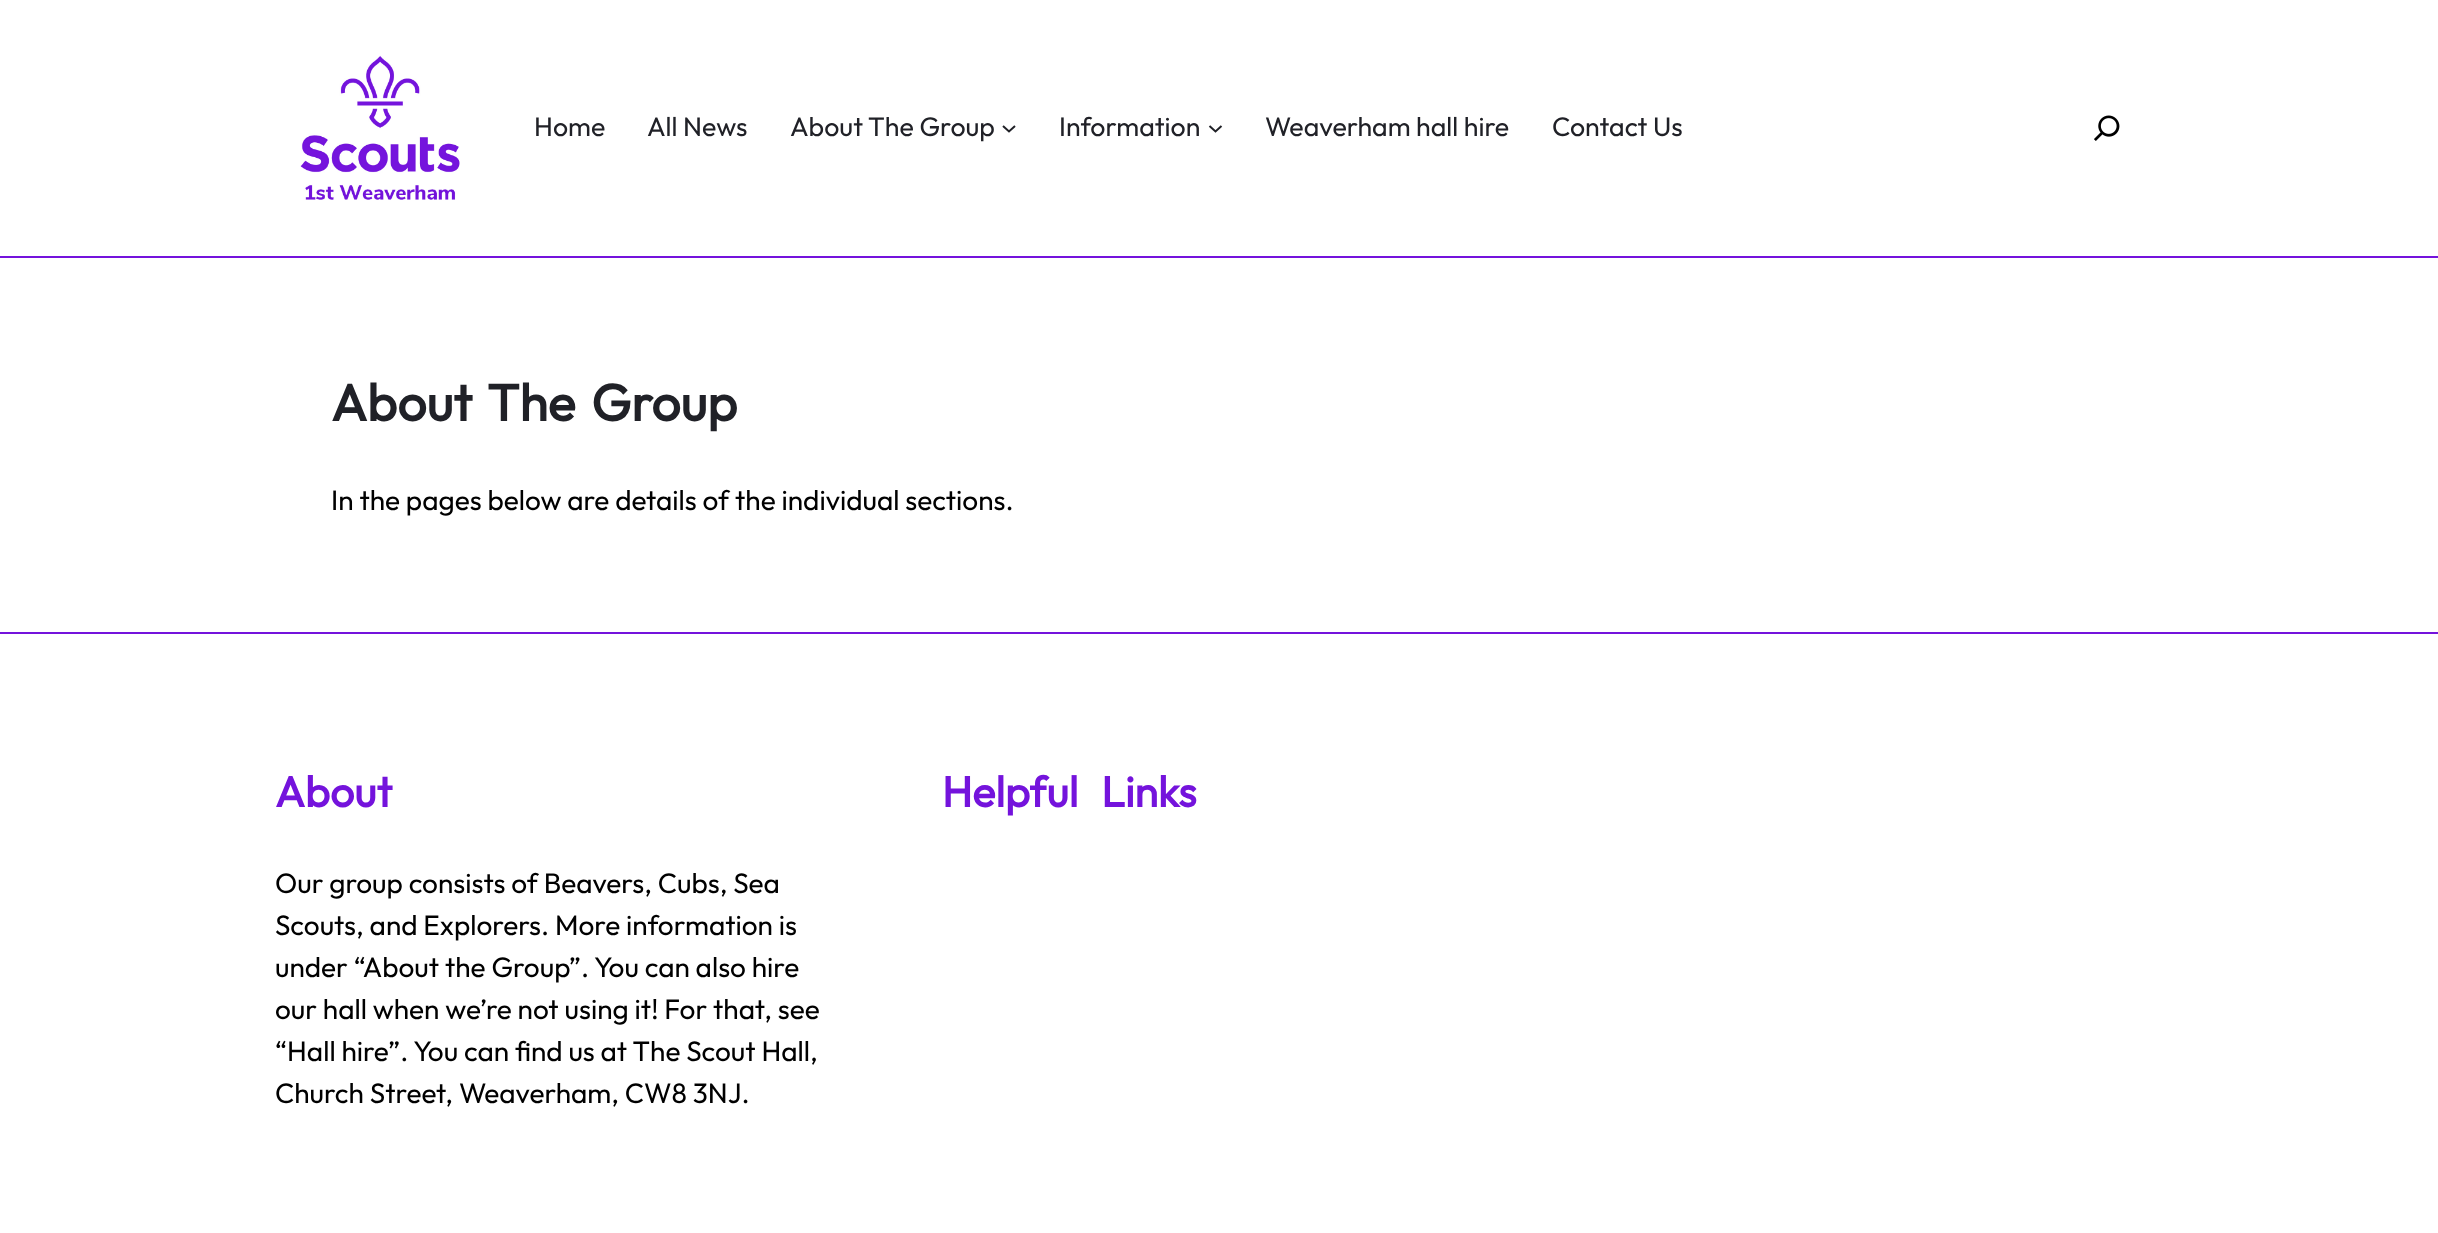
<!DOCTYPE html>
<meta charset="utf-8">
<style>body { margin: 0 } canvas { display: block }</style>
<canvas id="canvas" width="2438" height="1233"></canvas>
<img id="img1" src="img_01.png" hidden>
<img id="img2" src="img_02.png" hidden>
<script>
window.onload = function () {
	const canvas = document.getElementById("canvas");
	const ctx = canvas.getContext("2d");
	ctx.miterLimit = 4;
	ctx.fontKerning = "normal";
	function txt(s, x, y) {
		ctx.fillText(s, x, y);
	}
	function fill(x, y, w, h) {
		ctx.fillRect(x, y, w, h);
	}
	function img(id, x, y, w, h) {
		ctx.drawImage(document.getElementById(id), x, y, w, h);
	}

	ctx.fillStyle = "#FFFFFF";
	fill(0, 0, 2438, 1233);
	ctx.fillStyle = "#7413DC";
	fill(0, 256, 2438, 2);
	img("img1", 300, 55, 160, 145);
	ctx.beginPath();
	ctx.moveTo(1003, 126);
	ctx.lineTo(1009, 131.5);
	ctx.lineTo(1015, 126);
	ctx.strokeStyle = "#202127";
	ctx.lineWidth = 2;
	ctx.stroke();
	ctx.beginPath();
	ctx.moveTo(1209.5, 126);
	ctx.lineTo(1215.5, 131.5);
	ctx.lineTo(1221.5, 126);
	ctx.stroke();
	img("img2", 2094, 115, 26, 26);
	fill(0, 632, 2438, 2);
	ctx.font = "26.75px Outfit";
	ctx.fillStyle = "#202127";
	txt("Home", 534, 136);
	txt("All News", 647, 136);
	txt("About The Group", 790, 136);
	txt("Information", 1059, 136);
	txt("Weaverham hall hire", 1265, 136);
	txt("Contact Us", 1552, 136);
	ctx.wordSpacing = "5px";
	ctx.font = "bold 51.75px Outfit";
	txt("About The Group", 331, 421);
	ctx.wordSpacing = "0px";
	ctx.font = "28px Outfit";
	ctx.fillStyle = "#000000";
	txt("In the pages below are details of the individual sections.", 331, 510);
	ctx.font = "bold 43px Outfit";
	ctx.fillStyle = "#7413DC";
	txt("About", 275, 807);
	ctx.font = "28px Outfit";
	ctx.fillStyle = "#000000";
	txt("Our group consists of Beavers, Cubs, Sea", 275, 893);
	txt("Scouts, and Explorers. More information is", 275, 935);
	txt("under “About the Group”. You can also hire", 275, 977);
	txt("our hall when we’re not using it! For that, see", 275, 1019);
	txt("“Hall hire”. You can find us at The Scout Hall,", 275, 1061);
	txt("Church Street, Weaverham, CW8 3NJ.", 275, 1103);
	ctx.wordSpacing = "14px";
	ctx.font = "bold 43px Outfit";
	ctx.fillStyle = "#7413DC";
	txt("Helpful Links", 942, 807);
};
</script>
